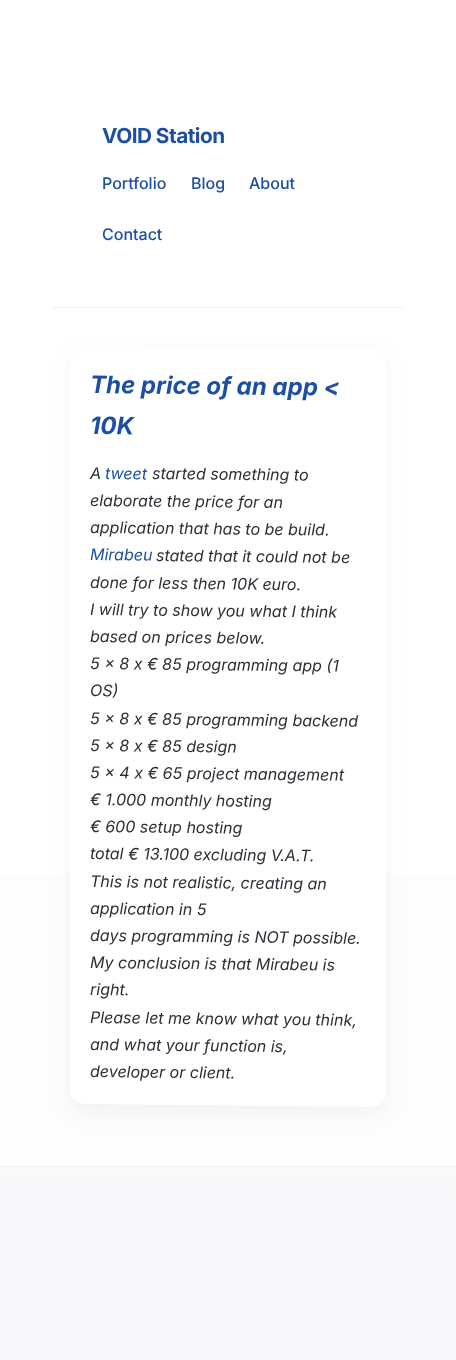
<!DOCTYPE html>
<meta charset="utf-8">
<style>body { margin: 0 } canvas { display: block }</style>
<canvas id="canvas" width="456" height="1360"></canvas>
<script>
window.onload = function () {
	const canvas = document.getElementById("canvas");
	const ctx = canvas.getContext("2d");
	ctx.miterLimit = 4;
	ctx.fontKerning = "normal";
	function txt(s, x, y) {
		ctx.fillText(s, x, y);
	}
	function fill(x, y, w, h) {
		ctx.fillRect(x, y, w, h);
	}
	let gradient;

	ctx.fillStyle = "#FFFFFF";
	fill(0, 0, 456, 1360);
	gradient = ctx.createLinearGradient(228, 0, 228, 1167);
	gradient.addColorStop(0, "#FEFEFE");
	gradient.addColorStop(1, "#FCFDFE");
	ctx.fillStyle = gradient;
	fill(0, 875, 456, 291);
	gradient = ctx.createLinearGradient(228, 1167, 228, 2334);
	gradient.addColorStop(0, "#F8F9FB");
	gradient.addColorStop(1, "#F1F7FA");
	ctx.fillStyle = gradient;
	fill(0, 1167, 456, 193);
	ctx.fillStyle = "#F0F1F1";
	fill(0, 1166, 456, 1);
	ctx.fillStyle = "#F2F2F2";
	fill(51, 307, 354, 1);
	ctx.fillStyle = "rgba(34, 51, 68, 0.06)";
	ctx.filter = "blur(10px)";
	ctx.beginPath();
	ctx.roundRect(70, 355, 316, 758, 14);
	ctx.fill();
	ctx.filter = "none";
	ctx.fillStyle = "#FFFFFF";
	ctx.beginPath();
	ctx.moveTo(84, 346);
	ctx.lineTo(372, 349);
	ctx.bezierCurveTo(379, 349, 386, 355, 386, 363);
	ctx.lineTo(386, 1093);
	ctx.bezierCurveTo(386, 1101, 379, 1107, 372, 1107);
	ctx.lineTo(84, 1104);
	ctx.bezierCurveTo(77, 1104, 70, 1098, 70, 1090);
	ctx.lineTo(70, 360);
	ctx.bezierCurveTo(70, 352, 77, 346, 84, 346);
	ctx.closePath();
	ctx.fill();
	ctx.letterSpacing = "-0.5px";
	ctx.font = "bold 20.75px Inter";
	ctx.fillStyle = "#1C4FA1";
	txt("VOID Station", 102, 143);
	ctx.letterSpacing = "0px";
	ctx.font = "500 16px Inter";
	txt("Portfolio", 102, 189);
	txt("Blog", 191, 189);
	txt("About", 249, 189);
	txt("Contact", 102, 240);
	ctx.font = "italic bold 24px Inter";
	ctx.save();
	ctx.translate(90, 393);
	ctx.rotate(0.6 * Math.PI / 180);
	ctx.fillText("The price of an app <", 0, 0);
	ctx.restore();
	ctx.save();
	ctx.translate(90, 434);
	ctx.rotate(0.6 * Math.PI / 180);
	ctx.fillText("10K", 0, 0);
	ctx.restore();
	ctx.font = "italic 16px Inter";
	ctx.fillStyle = "#2A2E35";
	ctx.save();
	ctx.translate(90, 479);
	ctx.rotate(0.6 * Math.PI / 180);
	ctx.fillText("A", 0, 0);
	ctx.restore();
	ctx.fillStyle = "#1C4FA1";
	ctx.save();
	ctx.translate(105, 479);
	ctx.rotate(0.6 * Math.PI / 180);
	ctx.fillText("tweet", 0, 0);
	ctx.restore();
	ctx.fillStyle = "#2A2E35";
	ctx.save();
	ctx.translate(152, 479);
	ctx.rotate(0.6 * Math.PI / 180);
	ctx.fillText("started something to", 0, 0);
	ctx.restore();
	ctx.save();
	ctx.translate(90, 506);
	ctx.rotate(0.6 * Math.PI / 180);
	ctx.fillText("elaborate the price for an", 0, 0);
	ctx.restore();
	ctx.save();
	ctx.translate(90, 533);
	ctx.rotate(0.6 * Math.PI / 180);
	ctx.fillText("application that has to be build.", 0, 0);
	ctx.restore();
	ctx.fillStyle = "#1C4FA1";
	ctx.save();
	ctx.translate(90, 560);
	ctx.rotate(0.6 * Math.PI / 180);
	ctx.fillText("Mirabeu", 0, 0);
	ctx.restore();
	ctx.fillStyle = "#2A2E35";
	ctx.save();
	ctx.translate(156, 561);
	ctx.rotate(0.6 * Math.PI / 180);
	ctx.fillText("stated that it could not be", 0, 0);
	ctx.restore();
	ctx.save();
	ctx.translate(90, 588);
	ctx.rotate(0.6 * Math.PI / 180);
	ctx.fillText("done for less then 10K euro.", 0, 0);
	ctx.restore();
	ctx.save();
	ctx.translate(90, 615);
	ctx.rotate(0.6 * Math.PI / 180);
	ctx.fillText("I will try to show you what I think", 0, 0);
	ctx.restore();
	ctx.save();
	ctx.translate(90, 642);
	ctx.rotate(0.6 * Math.PI / 180);
	ctx.fillText("based on prices below.", 0, 0);
	ctx.restore();
	ctx.save();
	ctx.translate(90, 669);
	ctx.rotate(0.6 * Math.PI / 180);
	ctx.fillText("5 x 8 x € 85 programming app (1", 0, 0);
	ctx.restore();
	ctx.save();
	ctx.translate(90, 696);
	ctx.rotate(0.6 * Math.PI / 180);
	ctx.fillText("OS)", 0, 0);
	ctx.restore();
	ctx.save();
	ctx.translate(90, 724);
	ctx.rotate(0.6 * Math.PI / 180);
	ctx.fillText("5 x 8 x € 85 programming backend", 0, 0);
	ctx.restore();
	ctx.save();
	ctx.translate(90, 751);
	ctx.rotate(0.6 * Math.PI / 180);
	ctx.fillText("5 x 8 x € 85 design", 0, 0);
	ctx.restore();
	ctx.save();
	ctx.translate(90, 778);
	ctx.rotate(0.6 * Math.PI / 180);
	ctx.fillText("5 x 4 x € 65 project management", 0, 0);
	ctx.restore();
	ctx.save();
	ctx.translate(90, 805);
	ctx.rotate(0.6 * Math.PI / 180);
	ctx.fillText("€ 1.000 monthly hosting", 0, 0);
	ctx.restore();
	ctx.save();
	ctx.translate(90, 832);
	ctx.rotate(0.6 * Math.PI / 180);
	ctx.fillText("€ 600 setup hosting", 0, 0);
	ctx.restore();
	ctx.save();
	ctx.translate(90, 859);
	ctx.rotate(0.6 * Math.PI / 180);
	ctx.fillText("total € 13.100 excluding V.A.T.", 0, 0);
	ctx.restore();
	ctx.save();
	ctx.translate(90, 887);
	ctx.rotate(0.6 * Math.PI / 180);
	ctx.fillText("This is not realistic, creating an", 0, 0);
	ctx.restore();
	ctx.save();
	ctx.translate(90, 914);
	ctx.rotate(0.6 * Math.PI / 180);
	ctx.fillText("application in 5", 0, 0);
	ctx.restore();
	ctx.save();
	ctx.translate(90, 941);
	ctx.rotate(0.6 * Math.PI / 180);
	ctx.fillText("days programming is NOT possible.", 0, 0);
	ctx.restore();
	ctx.save();
	ctx.translate(90, 968);
	ctx.rotate(0.6 * Math.PI / 180);
	ctx.fillText("My conclusion is that Mirabeu is", 0, 0);
	ctx.restore();
	ctx.save();
	ctx.translate(90, 995);
	ctx.rotate(0.6 * Math.PI / 180);
	ctx.fillText("right.", 0, 0);
	ctx.restore();
	ctx.save();
	ctx.translate(90, 1023);
	ctx.rotate(0.6 * Math.PI / 180);
	ctx.fillText("Please let me know what you think,", 0, 0);
	ctx.restore();
	ctx.save();
	ctx.translate(90, 1050);
	ctx.rotate(0.6 * Math.PI / 180);
	ctx.fillText("and what your function is,", 0, 0);
	ctx.restore();
	ctx.save();
	ctx.translate(90, 1077);
	ctx.rotate(0.6 * Math.PI / 180);
	ctx.fillText("developer or client.", 0, 0);
	ctx.restore();
};
</script>
